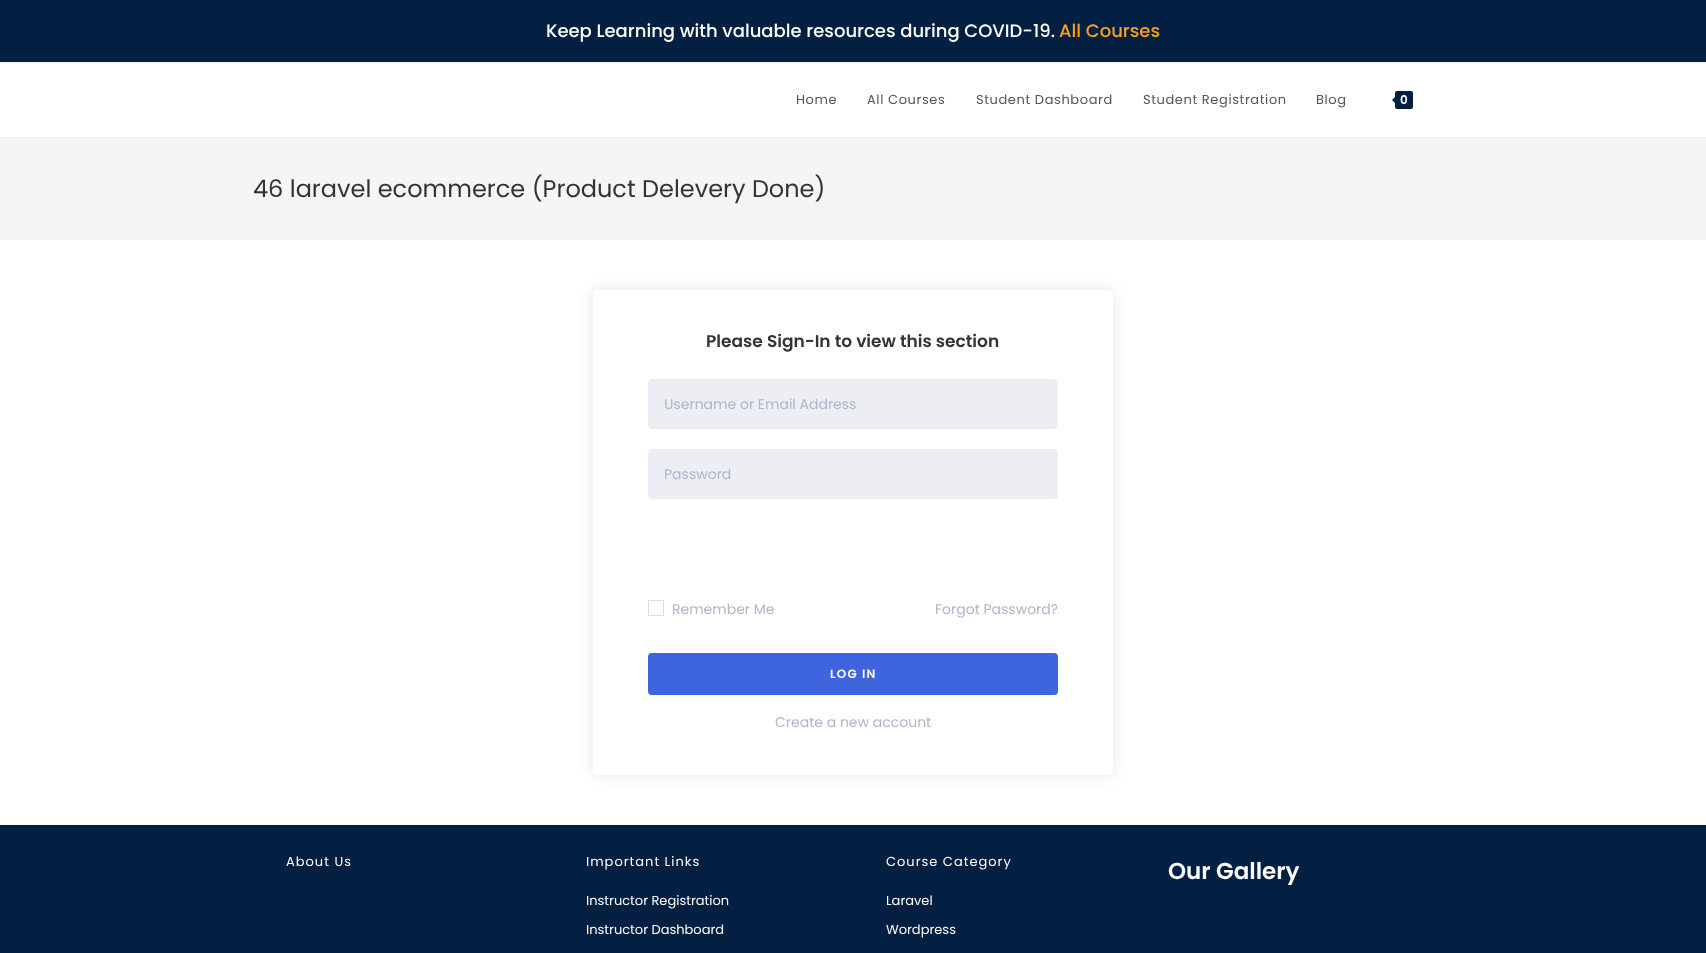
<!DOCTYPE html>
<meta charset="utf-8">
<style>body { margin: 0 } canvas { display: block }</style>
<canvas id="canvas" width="1706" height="953"></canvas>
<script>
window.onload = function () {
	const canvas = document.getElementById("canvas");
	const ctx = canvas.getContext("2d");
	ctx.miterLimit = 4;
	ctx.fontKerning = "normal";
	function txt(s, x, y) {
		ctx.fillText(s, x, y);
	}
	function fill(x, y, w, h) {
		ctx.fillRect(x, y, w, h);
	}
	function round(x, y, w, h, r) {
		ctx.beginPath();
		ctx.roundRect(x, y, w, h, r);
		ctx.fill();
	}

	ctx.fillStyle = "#FFFFFF";
	fill(0, 0, 1706, 953);
	ctx.fillStyle = "#031F42";
	fill(0, 0, 1706, 62);
	ctx.fillStyle = "#F1F1F1";
	fill(0, 62, 1706, 1);
	fill(0, 137, 1706, 1);
	ctx.fillStyle = "#031F42";
	round(1395, 91, 18, 18, 2);
	ctx.beginPath();
	ctx.moveTo(1397, 95);
	ctx.lineTo(1397, 105);
	ctx.lineTo(1392, 100);
	ctx.closePath();
	ctx.fill();
	ctx.fillStyle = "#F5F5F5";
	fill(0, 138, 1706, 102);
	ctx.save();
	ctx.beginPath();
	ctx.moveTo(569, 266);
	ctx.lineTo(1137, 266);
	ctx.lineTo(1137, 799);
	ctx.lineTo(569, 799);
	ctx.closePath();
	ctx.moveTo(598, 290);
	ctx.lineTo(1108, 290);
	ctx.bezierCurveTo(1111, 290, 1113, 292, 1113, 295);
	ctx.lineTo(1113, 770);
	ctx.bezierCurveTo(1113, 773, 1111, 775, 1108, 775);
	ctx.lineTo(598, 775);
	ctx.bezierCurveTo(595, 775, 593, 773, 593, 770);
	ctx.lineTo(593, 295);
	ctx.bezierCurveTo(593, 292, 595, 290, 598, 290);
	ctx.closePath();
	ctx.clip("evenodd");
	ctx.fillStyle = "rgba(0, 0, 0, 0.1)";
	ctx.filter = "blur(7.5px)";
	ctx.beginPath();
	ctx.roundRect(593, 290, 520, 485, 5);
	ctx.fill();
	ctx.filter = "none";
	ctx.restore();
	ctx.fillStyle = "#ECEEF4";
	ctx.beginPath();
	ctx.roundRect(648.5, 379.5, 409, 49, 3.5);
	ctx.fill();
	ctx.strokeStyle = "#E8EFF1";
	ctx.stroke();
	ctx.beginPath();
	ctx.roundRect(648.5, 449.5, 409, 49, 3.5);
	ctx.fill();
	ctx.stroke();
	ctx.strokeStyle = "#DDDDDD";
	ctx.strokeRect(648.5, 600.5, 15, 15);
	ctx.fillStyle = "#3E64DE";
	round(648, 653, 410, 42, 4);
	ctx.fillStyle = "#031F42";
	fill(0, 825, 1706, 128);
	ctx.font = "500 18px Poppins";
	ctx.fillStyle = "#FFFFFF";
	txt("Keep Learning with valuable resources during COVID-19.", 546, 37);
	ctx.fillStyle = "#F9A023";
	txt("All Courses", 1059, 37);
	ctx.letterSpacing = "0.6px";
	ctx.font = "13px Poppins";
	ctx.fillStyle = "#555555";
	txt("Home", 796, 104);
	txt("All Courses", 867, 104);
	txt("Student Dashboard", 976, 104);
	txt("Student Registration", 1143, 104);
	txt("Blog", 1316, 104);
	ctx.letterSpacing = "0px";
	ctx.font = "600 12px Poppins";
	ctx.fillStyle = "#FFFFFF";
	txt("0", 1400, 104);
	ctx.font = "24px Poppins";
	ctx.fillStyle = "#333333";
	txt("46 laravel ecommerce (Product Delevery Done)", 253, 197);
	ctx.font = "600 17px Poppins";
	txt("Please Sign-In to view this section", 706, 347);
	ctx.font = "14px Poppins";
	ctx.fillStyle = "#B0B6C8";
	txt("Username or Email Address", 664, 409);
	txt("Password", 664, 479);
	txt("Remember Me", 672, 614);
	txt("Forgot Password?", 935, 614);
	ctx.letterSpacing = "1.25px";
	ctx.font = "600 12px Poppins";
	ctx.fillStyle = "#FFFFFF";
	txt("LOG IN", 830, 678);
	ctx.letterSpacing = "0px";
	ctx.font = "14px Poppins";
	ctx.fillStyle = "#B0B6C8";
	txt("Create a new account", 775, 727);
	ctx.letterSpacing = "1px";
	ctx.font = "13px Poppins";
	ctx.fillStyle = "#FFFFFF";
	txt("About Us", 286, 866);
	txt("Important Links", 586, 866);
	ctx.letterSpacing = "0px";
	txt("Instructor Registration", 586, 905);
	txt("Instructor Dashboard", 586, 934);
	ctx.letterSpacing = "1px";
	txt("Course Category", 886, 866);
	ctx.letterSpacing = "0px";
	txt("Laravel", 886, 905);
	txt("Wordpress", 886, 934);
	ctx.font = "600 23px Poppins";
	txt("Our Gallery", 1168, 879);
};
</script>
